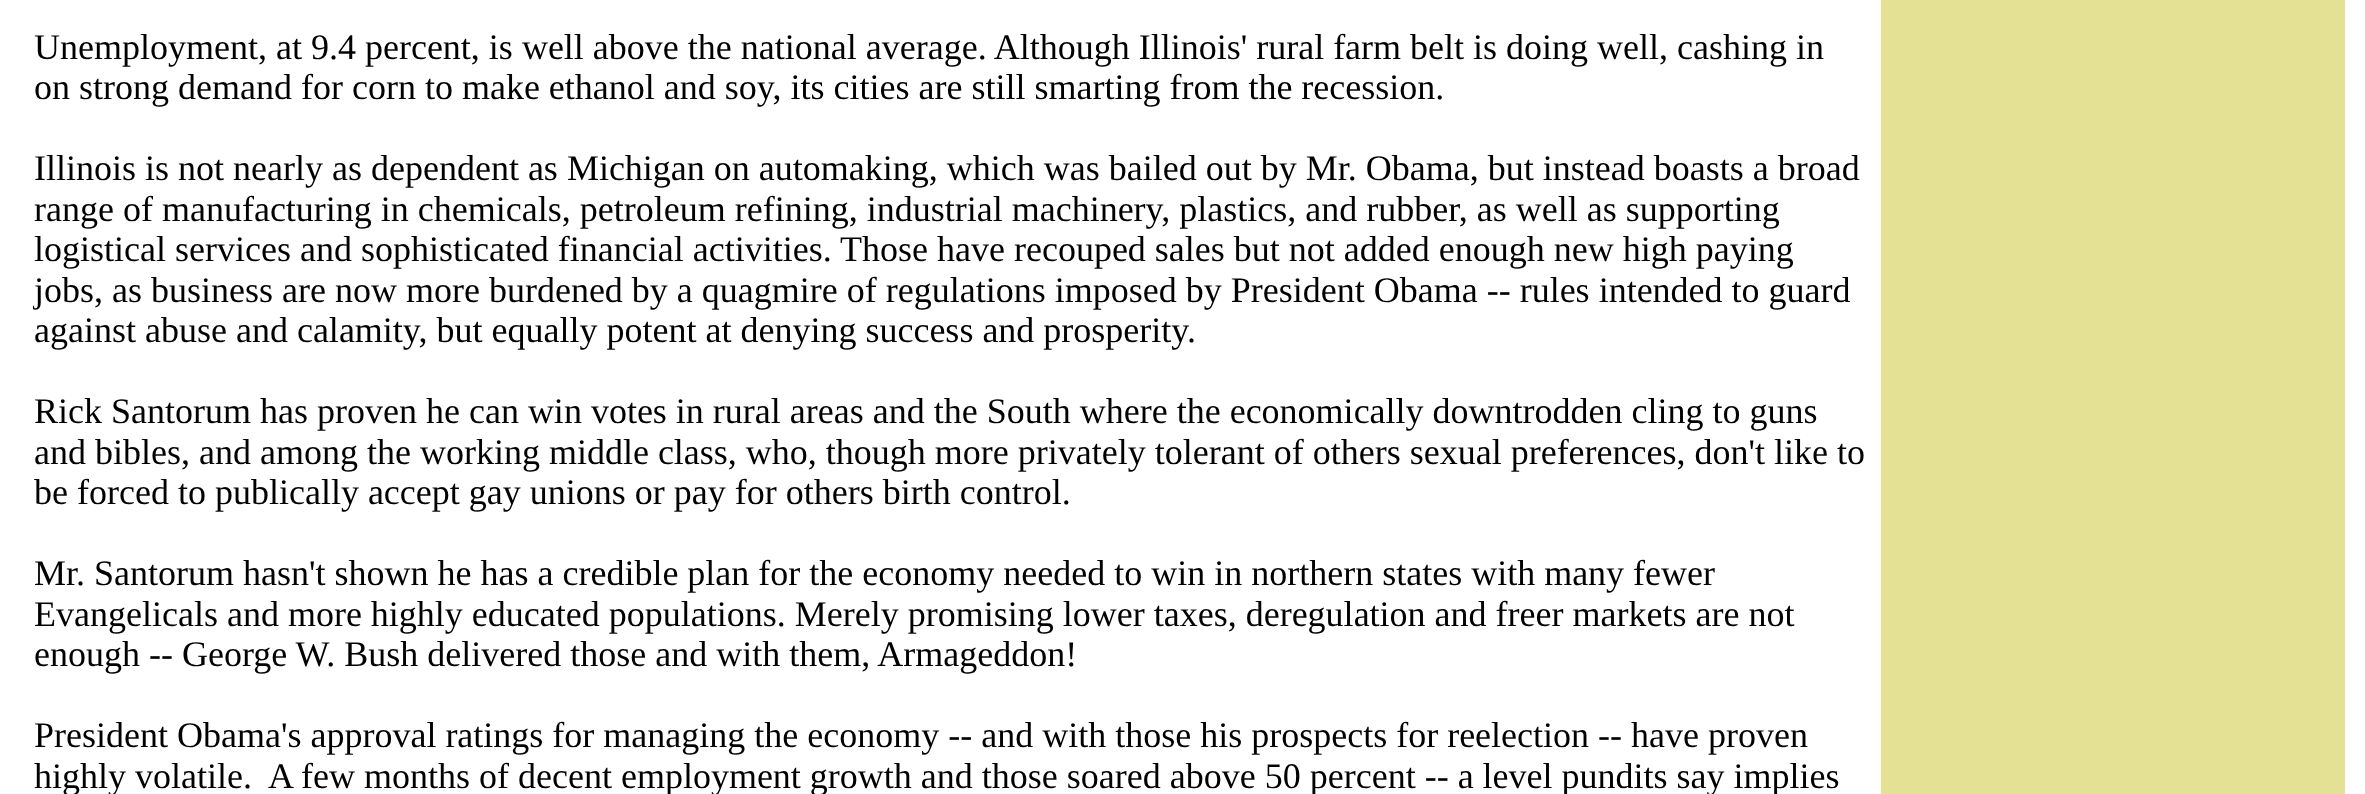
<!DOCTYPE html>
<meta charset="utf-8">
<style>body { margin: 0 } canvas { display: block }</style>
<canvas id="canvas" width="2365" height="794"></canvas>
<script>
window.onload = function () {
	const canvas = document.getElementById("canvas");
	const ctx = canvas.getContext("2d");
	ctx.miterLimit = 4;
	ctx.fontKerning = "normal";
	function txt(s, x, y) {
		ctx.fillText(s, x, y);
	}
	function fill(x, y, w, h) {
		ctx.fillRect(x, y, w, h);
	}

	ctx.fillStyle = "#FFFFFF";
	fill(0, 0, 2365, 794);
	ctx.fillStyle = "#E4E094";
	fill(1881, 0, 464, 794);
	ctx.font = "36px Liberation Serif";
	ctx.fillStyle = "#000000";
	txt("Unemployment, at 9.4 percent, is well above the national average. Although Illinois' rural farm belt is doing well, cashing in", 34, 59);
	txt("on strong demand for corn to make ethanol and soy, its cities are still smarting from the recession.", 34, 99);
	txt("Illinois is not nearly as dependent as Michigan on automaking, which was bailed out by Mr. Obama, but instead boasts a broad", 34, 180);
	txt("range of manufacturing in chemicals, petroleum refining, industrial machinery, plastics, and rubber, as well as supporting", 34, 221);
	txt("logistical services and sophisticated financial activities.", 34, 261);
	txt("Those have recouped sales but not added enough new high paying", 840, 261);
	txt("jobs, as business are now more burdened by a quagmire of regulations imposed by President Obama -- rules intended to guard", 34, 302);
	txt("against abuse and calamity, but equally potent at denying success and prosperity.", 34, 342);
	txt("Rick Santorum has proven he can win votes in rural areas and the South where the economically downtrodden cling to guns", 34, 423);
	txt("and bibles, and among the working middle class, who, though more privately tolerant of others sexual preferences, don't like to", 34, 464);
	txt("be forced to publically accept gay unions or pay for others birth control.", 34, 504);
	txt("Mr. Santorum hasn't shown he has a credible plan for the economy needed to win in northern states with many fewer", 34, 585);
	txt("Evangelicals and more highly educated populations. Merely promising lower taxes, deregulation and freer markets are not", 34, 626);
	txt("enough -- George W. Bush delivered those and with them, Armageddon!", 34, 666);
	txt("President Obama's approval ratings for managing the economy -- and with those his prospects for reelection -- have proven", 34, 747);
	txt("highly volatile.  A few months of decent employment growth and those soared above 50 percent -- a level pundits say implies", 34, 788);
};
</script>
